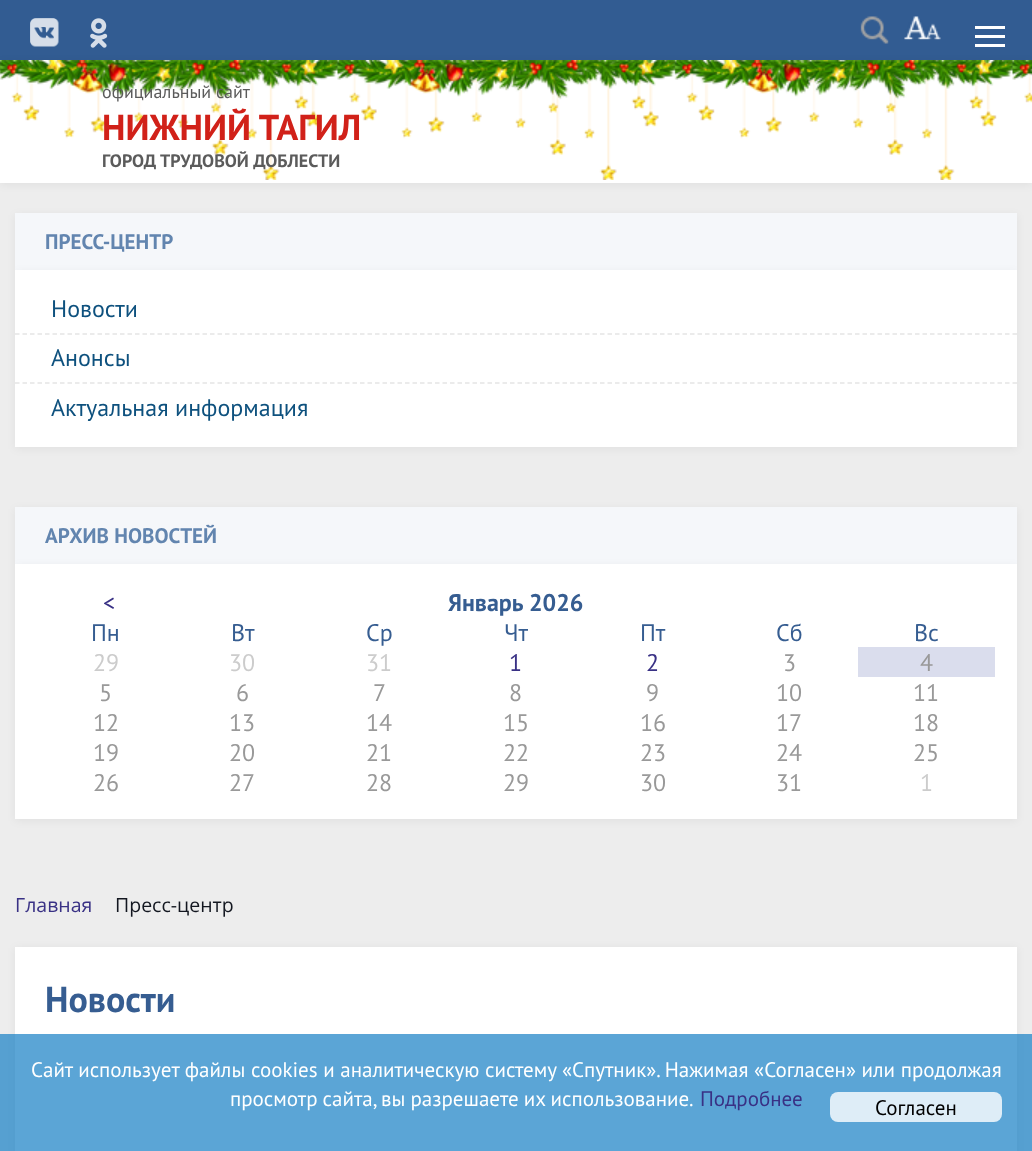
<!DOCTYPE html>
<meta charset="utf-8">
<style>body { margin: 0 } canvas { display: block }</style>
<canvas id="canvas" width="1032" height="1151"></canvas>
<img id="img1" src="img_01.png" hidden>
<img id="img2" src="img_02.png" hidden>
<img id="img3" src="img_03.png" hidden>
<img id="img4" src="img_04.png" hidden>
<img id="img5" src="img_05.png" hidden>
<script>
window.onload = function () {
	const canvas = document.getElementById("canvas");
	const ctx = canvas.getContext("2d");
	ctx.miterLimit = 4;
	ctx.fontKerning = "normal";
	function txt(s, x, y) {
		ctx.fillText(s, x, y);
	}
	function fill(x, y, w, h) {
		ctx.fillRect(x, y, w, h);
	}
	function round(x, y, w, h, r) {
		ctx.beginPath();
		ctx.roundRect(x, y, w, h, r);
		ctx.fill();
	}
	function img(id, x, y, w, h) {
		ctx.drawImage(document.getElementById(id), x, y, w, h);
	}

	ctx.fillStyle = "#EDEDED";
	fill(0, 0, 1032, 1151);
	ctx.fillStyle = "#325C92";
	fill(0, 0, 1032, 60);
	ctx.fillStyle = "#FFFFFF";
	fill(975, 35, 30, 3);
	fill(975, 26, 30, 3);
	fill(975, 44, 30, 3);
	img("img1", 30, 18, 29, 29);
	img("img2", 90, 18, 18, 30);
	img("img3", 860, 16, 29, 28);
	img("img4", 904, 16, 37, 24);
	ctx.fillStyle = "rgba(0, 0, 0, 0.05)";
	ctx.filter = "blur(4px)";
	ctx.beginPath();
	ctx.rect(0, 62, 1032, 123);
	ctx.fill();
	ctx.filter = "none";
	ctx.fillStyle = "#FFFFFF";
	fill(0, 60, 1032, 123);
	img("img5", 0, 60, 1032, 120);
	ctx.fillStyle = "rgba(0, 0, 0, 0.05)";
	ctx.filter = "blur(4px)";
	ctx.beginPath();
	ctx.rect(15, 215, 1002, 57);
	ctx.fill();
	ctx.filter = "none";
	ctx.fillStyle = "#F5F7FA";
	fill(15, 213, 1002, 57);
	ctx.fillStyle = "rgba(0, 0, 0, 0.05)";
	ctx.filter = "blur(4px)";
	ctx.beginPath();
	ctx.rect(15, 272, 1002, 177);
	ctx.fill();
	ctx.filter = "none";
	ctx.fillStyle = "#FFFFFF";
	fill(15, 270, 1002, 177);
	ctx.beginPath();
	ctx.moveTo(15, 334);
	ctx.lineTo(1017, 334);
	ctx.strokeStyle = "#E5E5E5";
	ctx.lineWidth = 1.5;
	ctx.setLineDash([4.5, 3]);
	ctx.stroke();
	ctx.beginPath();
	ctx.moveTo(15, 383);
	ctx.lineTo(1017, 383);
	ctx.stroke();
	ctx.fillStyle = "rgba(0, 0, 0, 0.05)";
	ctx.filter = "blur(4px)";
	ctx.beginPath();
	ctx.rect(15, 509, 1002, 57);
	ctx.fill();
	ctx.filter = "none";
	ctx.fillStyle = "#F5F7FA";
	fill(15, 507, 1002, 57);
	ctx.fillStyle = "rgba(0, 0, 0, 0.05)";
	ctx.filter = "blur(4px)";
	ctx.beginPath();
	ctx.rect(15, 566, 1002, 255);
	ctx.fill();
	ctx.filter = "none";
	ctx.fillStyle = "#FFFFFF";
	fill(15, 564, 1002, 255);
	ctx.fillStyle = "#DADDED";
	fill(858, 647, 137, 30);
	ctx.fillStyle = "rgba(0, 0, 0, 0.05)";
	ctx.filter = "blur(4px)";
	ctx.beginPath();
	ctx.rect(15, 948, 1002, 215);
	ctx.fill();
	ctx.filter = "none";
	ctx.fillStyle = "#FFFFFF";
	fill(15, 947, 1002, 204);
	ctx.fillStyle = "rgba(21, 127, 196, 0.7)";
	fill(0, 1034, 1032, 117);
	ctx.fillStyle = "#DEEDF7";
	round(830, 1092, 172, 30, 8);
	ctx.font = "18px PT Sans";
	ctx.fillStyle = "#5B5B5B";
	txt("официальный сайт", 102, 98);
	ctx.font = "bold 36px PT Sans";
	ctx.fillStyle = "#D12119";
	txt("НИЖНИЙ ТАГИЛ", 102, 140);
	ctx.font = "bold 18px PT Sans";
	ctx.fillStyle = "#5B5B5B";
	txt("ГОРОД ТРУДОВОЙ ДОБЛЕСТИ", 102, 167);
	ctx.font = "bold 21px PT Sans";
	ctx.fillStyle = "#6285AF";
	txt("ПРЕСС-ЦЕНТР", 45, 249);
	ctx.font = "24px PT Sans";
	ctx.fillStyle = "#0E517E";
	txt("Новости", 51, 317);
	txt("Анонсы", 51, 366);
	txt("Актуальная информация", 51, 416);
	ctx.font = "bold 21px PT Sans";
	ctx.fillStyle = "#6285AF";
	txt("АРХИВ НОВОСТЕЙ", 45, 543);
	ctx.font = "24px PT Sans";
	ctx.fillStyle = "#393185";
	txt("<", 103, 611);
	ctx.font = "bold 24px PT Sans";
	ctx.fillStyle = "#365D91";
	txt("Январь 2026", 448, 611);
	ctx.font = "24px PT Sans";
	txt("Пн", 91, 641);
	txt("Вт", 231, 641);
	txt("Ср", 366, 641);
	txt("Чт", 504, 641);
	txt("Пт", 640, 641);
	txt("Сб", 776, 641);
	txt("Вс", 914, 641);
	ctx.fillStyle = "#CCCCCC";
	txt("29", 93, 671);
	txt("30", 229, 671);
	txt("31", 366, 671);
	ctx.fillStyle = "#393185";
	txt("1", 509, 671);
	txt("2", 646, 671);
	ctx.fillStyle = "#999999";
	txt("3", 783, 671);
	txt("4", 920, 671);
	txt("5", 99, 701);
	txt("6", 236, 701);
	txt("7", 373, 701);
	txt("8", 509, 701);
	txt("9", 646, 701);
	txt("10", 776, 701);
	txt("11", 913, 701);
	txt("12", 93, 731);
	txt("13", 229, 731);
	txt("14", 366, 731);
	txt("15", 503, 731);
	txt("16", 640, 731);
	txt("17", 776, 731);
	txt("18", 913, 731);
	txt("19", 93, 761);
	txt("20", 229, 761);
	txt("21", 366, 761);
	txt("22", 503, 761);
	txt("23", 640, 761);
	txt("24", 776, 761);
	txt("25", 913, 761);
	txt("26", 93, 791);
	txt("27", 229, 791);
	txt("28", 366, 791);
	txt("29", 503, 791);
	txt("30", 640, 791);
	txt("31", 776, 791);
	ctx.fillStyle = "#CCCCCC";
	txt("1", 920, 791);
	ctx.font = "19.5px Open Sans";
	ctx.fillStyle = "#393185";
	txt("Главная", 15, 912);
	ctx.fillStyle = "#131720";
	txt("Пресс-центр", 115, 912);
	ctx.font = "bold 36px PT Sans";
	ctx.fillStyle = "#365D91";
	txt("Новости", 45, 1012);
	ctx.font = "21px PT Sans";
	ctx.fillStyle = "#FFFFFF";
	txt("Сайт использует файлы cookies и аналитическую систему «Спутник». Нажимая «Согласен» или продолжая", 31, 1077);
	ctx.wordSpacing = "-0.5px";
	txt("просмотр сайта, вы разрешаете их использование.", 230, 1106);
	ctx.wordSpacing = "0px";
	ctx.fillStyle = "#393185";
	txt("Подробнее", 700, 1106);
	ctx.fillStyle = "#000000";
	txt("Согласен", 875, 1115);
};
</script>
